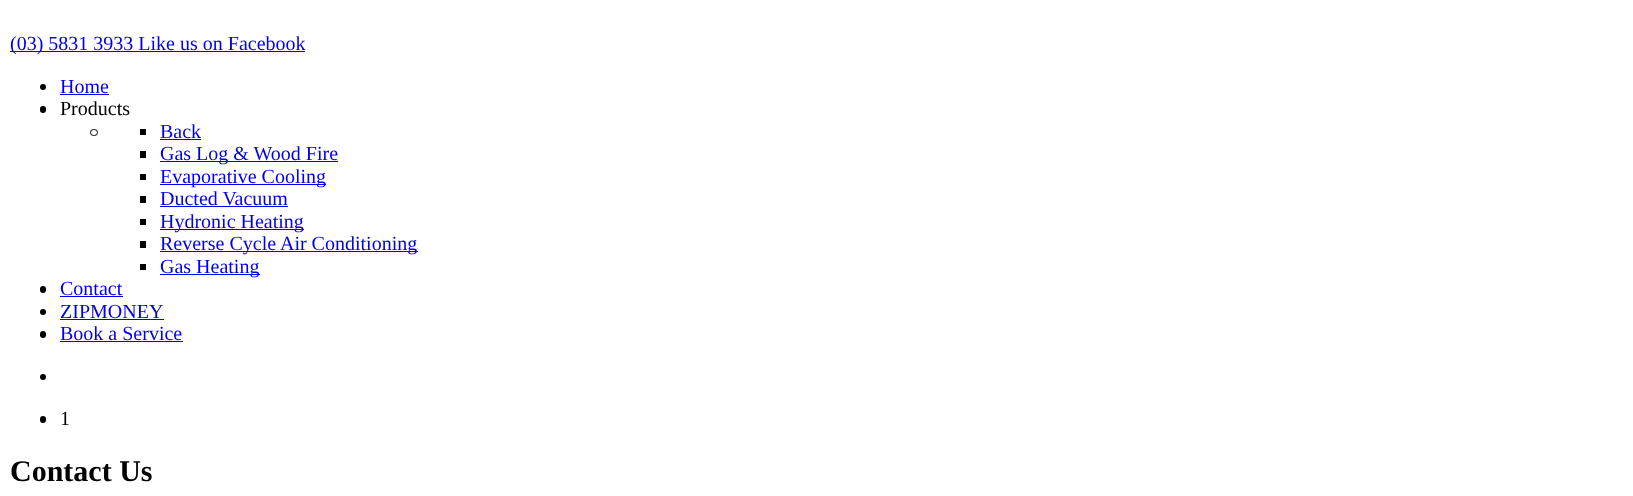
<!DOCTYPE html>
<meta charset="utf-8">
<style>body { margin: 0 } canvas { display: block }</style>
<canvas id="canvas" width="1633" height="496"></canvas>
<script>
window.onload = function () {
	const canvas = document.getElementById("canvas");
	const ctx = canvas.getContext("2d");
	ctx.miterLimit = 4;
	ctx.fontKerning = "normal";
	function txt(s, x, y) {
		ctx.fillText(s, x, y);
	}
	function fill(x, y, w, h) {
		ctx.fillRect(x, y, w, h);
	}
	function round(x, y, w, h, r) {
		ctx.beginPath();
		ctx.roundRect(x, y, w, h, r);
		ctx.fill();
	}

	ctx.fillStyle = "#FFFFFF";
	fill(0, 0, 1633, 496);
	ctx.fillStyle = "#0000EE";
	fill(10, 51, 295, 1);
	ctx.fillStyle = "#000000";
	ctx.beginPath();
	ctx.arc(43, 87, 3, 0, Math.PI * 2);
	ctx.fill();
	ctx.fillStyle = "#0000EE";
	fill(60, 94, 49, 1);
	ctx.fillStyle = "#000000";
	round(40, 106, 6, 7, 3);
	ctx.beginPath();
	ctx.roundRect(90.5, 129.5, 7, 6, 3);
	ctx.strokeStyle = "#000000";
	ctx.stroke();
	fill(140, 129, 6, 6);
	ctx.fillStyle = "#0000EE";
	fill(160, 139, 41, 1);
	ctx.fillStyle = "#000000";
	fill(140, 151, 6, 7);
	ctx.fillStyle = "#0000EE";
	fill(160, 161, 178, 1);
	ctx.fillStyle = "#000000";
	fill(140, 174, 6, 6);
	ctx.fillStyle = "#0000EE";
	fill(160, 184, 166, 1);
	ctx.fillStyle = "#000000";
	fill(140, 196, 6, 7);
	ctx.fillStyle = "#0000EE";
	fill(160, 206, 128, 1);
	ctx.fillStyle = "#000000";
	fill(140, 219, 6, 6);
	ctx.fillStyle = "#0000EE";
	fill(160, 229, 144, 1);
	ctx.fillStyle = "#000000";
	fill(140, 241, 6, 7);
	ctx.fillStyle = "#0000EE";
	fill(160, 251, 258, 1);
	ctx.fillStyle = "#000000";
	fill(140, 264, 6, 6);
	ctx.fillStyle = "#0000EE";
	fill(160, 274, 100, 1);
	ctx.fillStyle = "#000000";
	round(40, 286, 6, 7, 3);
	ctx.fillStyle = "#0000EE";
	fill(60, 296, 63, 1);
	ctx.fillStyle = "#000000";
	ctx.beginPath();
	ctx.arc(43, 312, 3, 0, Math.PI * 2);
	ctx.fill();
	ctx.fillStyle = "#0000EE";
	fill(60, 319, 104, 1);
	ctx.fillStyle = "#000000";
	round(40, 331, 6, 7, 3);
	ctx.fillStyle = "#0000EE";
	fill(60, 341, 123, 1);
	ctx.fillStyle = "#000000";
	ctx.beginPath();
	ctx.arc(43, 377, 3, 0, Math.PI * 2);
	ctx.fill();
	round(40, 416, 6, 7, 3);
	ctx.font = "20px Liberation Serif";
	ctx.fillStyle = "#0000EE";
	txt("(03) 5831 3933 Like us on Facebook", 10, 50);
	txt("Home", 60, 93);
	ctx.fillStyle = "#000000";
	txt("Products", 60, 115);
	ctx.fillStyle = "#0000EE";
	txt("Back", 160, 138);
	txt("Gas Log & Wood Fire", 160, 160);
	txt("Evaporative Cooling", 160, 183);
	txt("Ducted Vacuum", 160, 205);
	txt("Hydronic Heating", 160, 228);
	txt("Reverse Cycle Air Conditioning", 160, 250);
	txt("Gas Heating", 160, 273);
	txt("Contact", 60, 295);
	txt("ZIPMONEY", 60, 318);
	txt("Book a Service", 60, 340);
	ctx.fillStyle = "#000000";
	txt("1", 60, 425);
	ctx.font = "bold 30px Liberation Serif";
	txt("Contact Us", 10, 481);
};
</script>
